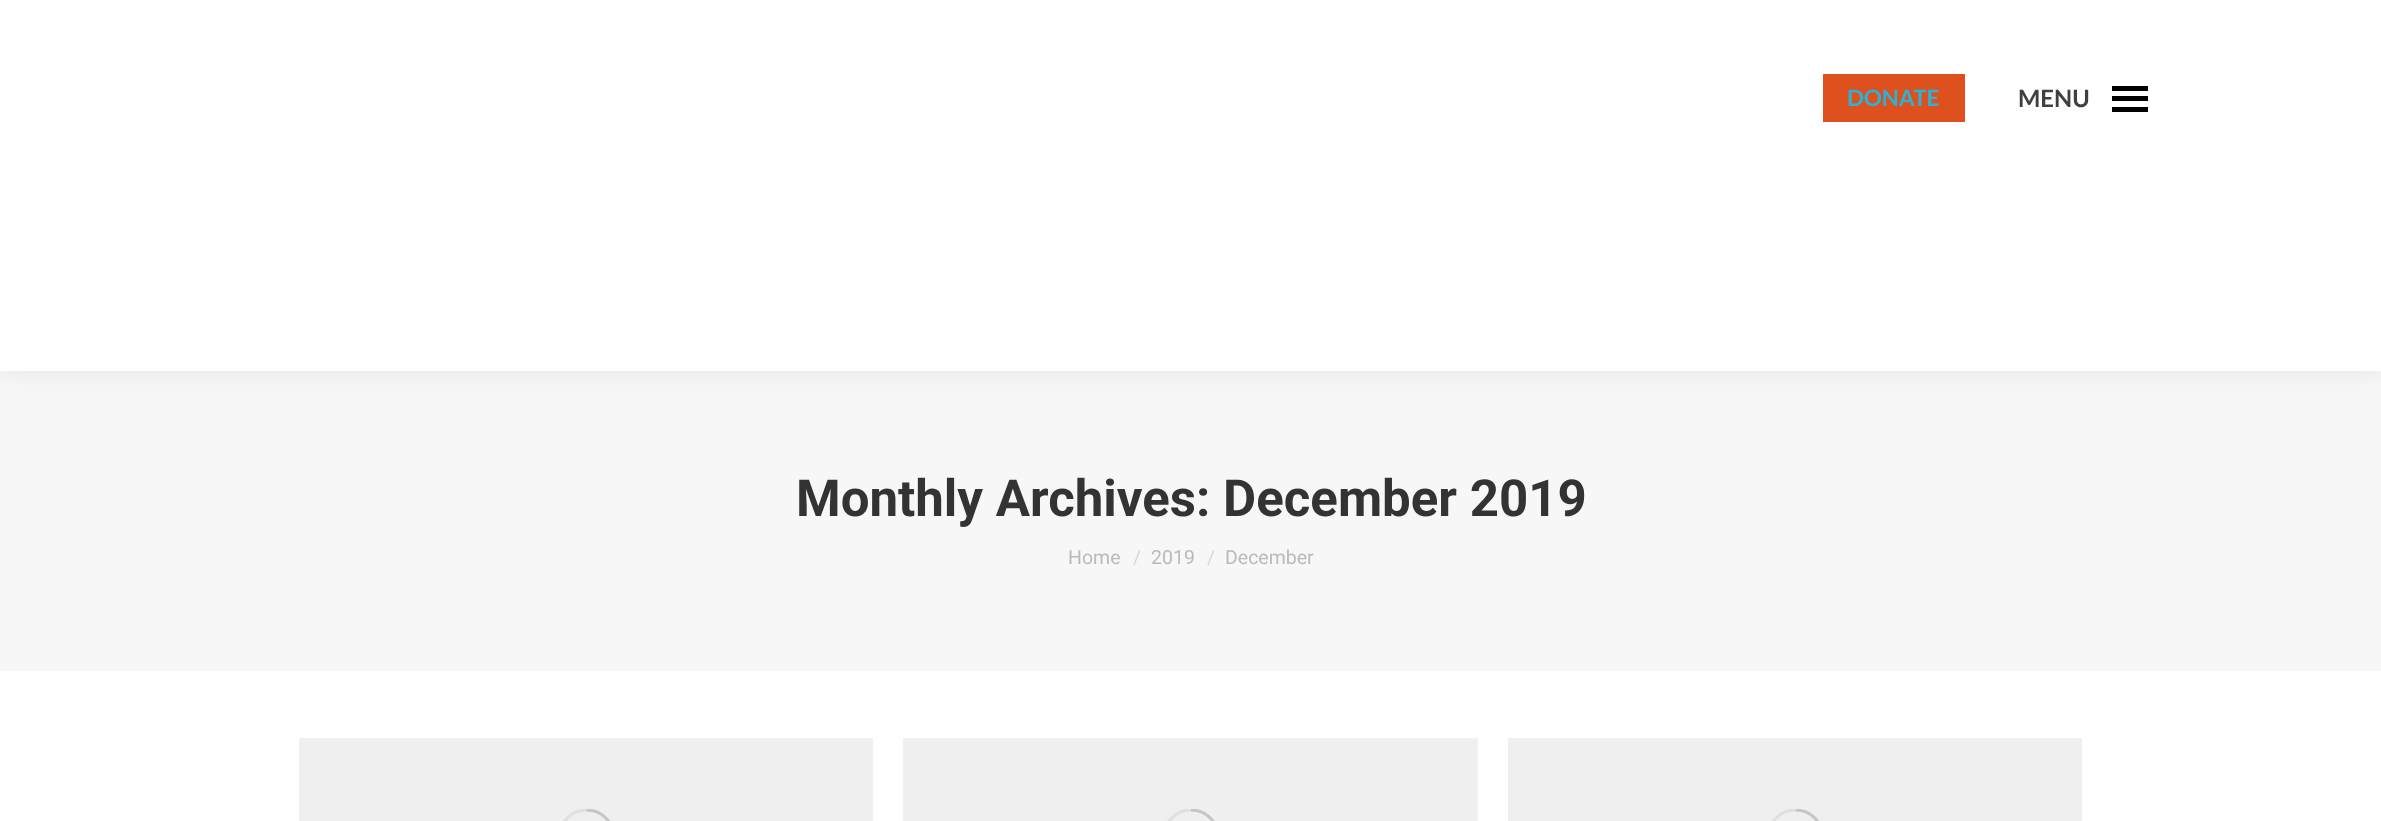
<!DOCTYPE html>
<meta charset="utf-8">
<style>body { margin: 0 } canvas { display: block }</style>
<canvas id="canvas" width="2381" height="821"></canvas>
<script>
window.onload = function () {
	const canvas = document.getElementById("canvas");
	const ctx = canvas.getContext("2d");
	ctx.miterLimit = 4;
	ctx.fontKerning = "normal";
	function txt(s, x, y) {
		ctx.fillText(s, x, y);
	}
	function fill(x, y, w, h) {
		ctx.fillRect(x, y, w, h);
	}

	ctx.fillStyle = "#FFFFFF";
	fill(0, 0, 2381, 821);
	ctx.fillStyle = "#F7F7F7";
	fill(0, 371, 2381, 300);
	ctx.fillStyle = "rgba(0, 0, 0, 0.07)";
	ctx.filter = "blur(11px)";
	ctx.beginPath();
	ctx.rect(-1, -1, 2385, 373);
	ctx.fill();
	ctx.filter = "none";
	ctx.fillStyle = "#FFFFFF";
	fill(0, 0, 2381, 371);
	ctx.fillStyle = "#DE501E";
	fill(1823, 74, 142, 48);
	ctx.fillStyle = "#000000";
	fill(2112, 86, 36, 5);
	fill(2112, 96, 36, 5);
	fill(2112, 107, 36, 5);
	ctx.fillStyle = "#EFEFEF";
	fill(299, 738, 574, 83);
	ctx.save();
	ctx.beginPath();
	ctx.rect(558, 809, 57, 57);
	ctx.clip();
	ctx.beginPath();
	ctx.arc(586.5, 837, 27, 0, Math.PI * 2);
	ctx.strokeStyle = "#DFDFDF";
	ctx.lineWidth = 3;
	ctx.stroke();
	ctx.beginPath();
	ctx.moveTo(613.5, 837);
	ctx.bezierCurveTo(613.5, 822, 601.5, 810, 586.5, 810);
	ctx.strokeStyle = "rgba(122, 122, 122, 0.25)";
	ctx.stroke();
	ctx.restore();
	fill(903, 738, 575, 83);
	ctx.save();
	ctx.beginPath();
	ctx.rect(1163, 809, 57, 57);
	ctx.clip();
	ctx.beginPath();
	ctx.arc(1191, 837, 27, 0, Math.PI * 2);
	ctx.strokeStyle = "#DFDFDF";
	ctx.lineWidth = 3;
	ctx.stroke();
	ctx.beginPath();
	ctx.moveTo(1218, 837);
	ctx.bezierCurveTo(1218, 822, 1206, 810, 1191, 810);
	ctx.strokeStyle = "rgba(122, 122, 122, 0.25)";
	ctx.stroke();
	ctx.restore();
	fill(1508, 738, 574, 83);
	ctx.save();
	ctx.beginPath();
	ctx.rect(1767, 809, 57, 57);
	ctx.clip();
	ctx.beginPath();
	ctx.arc(1795.5, 837, 27, 0, Math.PI * 2);
	ctx.strokeStyle = "#DFDFDF";
	ctx.lineWidth = 3;
	ctx.stroke();
	ctx.beginPath();
	ctx.moveTo(1822.5, 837);
	ctx.bezierCurveTo(1822.5, 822, 1810.5, 810, 1795.5, 810);
	ctx.strokeStyle = "rgba(122, 122, 122, 0.25)";
	ctx.stroke();
	ctx.restore();
	ctx.font = "bold 22.5px Lato";
	ctx.fillStyle = "#2BB3D5";
	txt("DONATE", 1847, 106);
	ctx.font = "bold 24px Lato";
	ctx.fillStyle = "#3F3F3F";
	txt("MENU", 2018, 107);
	ctx.font = "bold 51px Roboto";
	ctx.fillStyle = "#333333";
	txt("Monthly Archives: December 2019", 796, 516);
	ctx.font = "19.5px Roboto";
	ctx.fillStyle = "#B7BABE";
	txt("Home", 1068, 564);
	ctx.fillStyle = "#D7D9DB";
	txt("/", 1133, 564);
	ctx.fillStyle = "#B7BABE";
	txt("2019", 1151, 564);
	ctx.fillStyle = "#D7D9DB";
	txt("/", 1207, 564);
	ctx.fillStyle = "#B7BABE";
	txt("December", 1225, 564);
};
</script>
